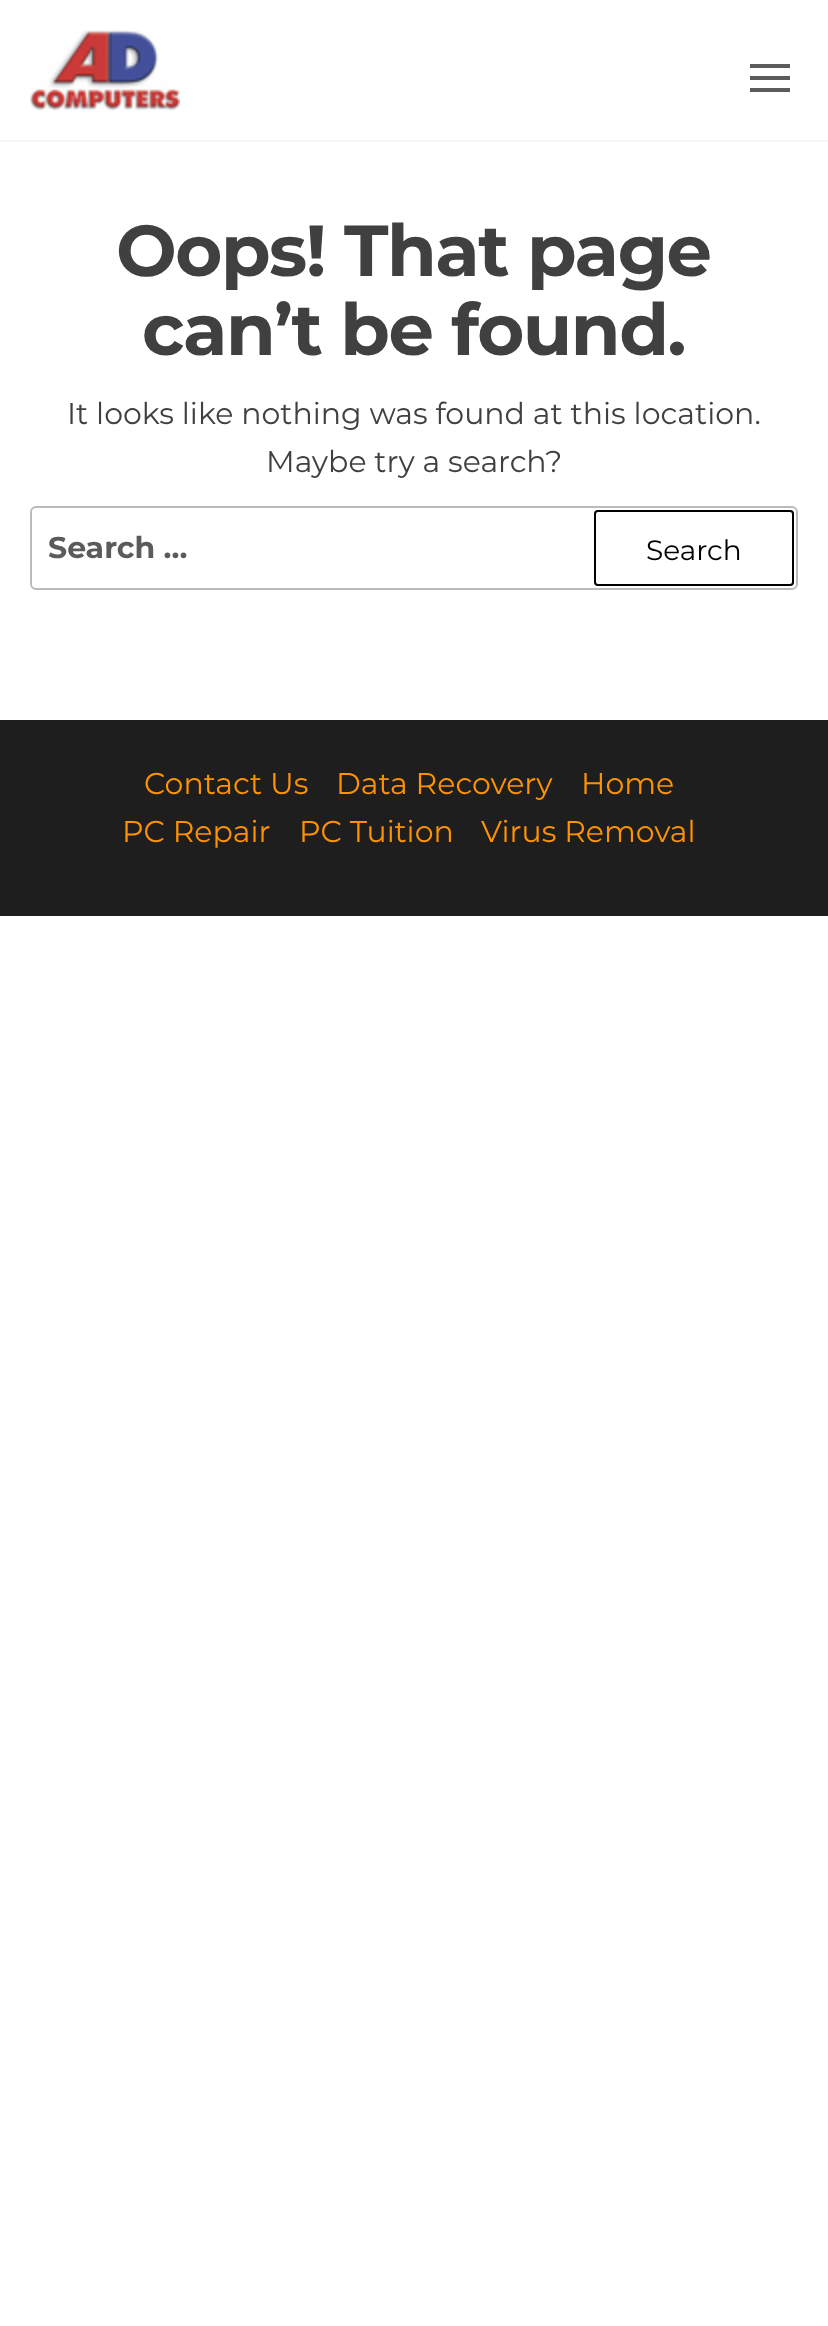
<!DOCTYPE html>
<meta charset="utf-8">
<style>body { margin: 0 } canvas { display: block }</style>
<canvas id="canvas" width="828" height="2326"></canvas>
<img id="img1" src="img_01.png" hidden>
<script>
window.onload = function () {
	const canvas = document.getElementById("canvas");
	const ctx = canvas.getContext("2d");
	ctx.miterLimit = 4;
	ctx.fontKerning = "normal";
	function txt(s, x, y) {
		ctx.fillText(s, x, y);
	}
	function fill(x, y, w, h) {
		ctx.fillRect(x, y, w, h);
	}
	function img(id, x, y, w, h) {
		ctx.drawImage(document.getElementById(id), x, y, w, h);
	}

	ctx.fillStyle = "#FFFFFF";
	fill(0, 0, 828, 2326);
	ctx.fillStyle = "#F6F6F6";
	fill(0, 140, 828, 2);
	img("img1", 30, 30, 150, 80);
	ctx.fillStyle = "#5C5C5C";
	fill(750, 76, 40, 4);
	fill(750, 64, 40, 4);
	fill(750, 88, 40, 4);
	ctx.beginPath();
	ctx.roundRect(31, 507, 766, 82, 5);
	ctx.strokeStyle = "#BBBBBB";
	ctx.lineWidth = 2;
	ctx.stroke();
	ctx.beginPath();
	ctx.roundRect(595, 511, 198, 74, 3);
	ctx.strokeStyle = "#000000";
	ctx.stroke();
	ctx.fillStyle = "#1E1E1E";
	fill(0, 720, 828, 196);
	ctx.letterSpacing = "-1.5px";
	ctx.font = "bold 72px Montserrat";
	ctx.fillStyle = "#404040";
	txt("Oops! That page", 116, 276);
	txt("can’t be found.", 142, 355);
	ctx.letterSpacing = "0px";
	ctx.font = "30px Montserrat";
	txt("It looks like nothing was found at this location.", 67, 424);
	txt("Maybe try a search?", 266, 472);
	ctx.font = "bold 30px Montserrat";
	ctx.fillStyle = "#5B5B5B";
	txt("Search …", 48, 558);
	ctx.font = "28px Montserrat";
	ctx.fillStyle = "#000000";
	txt("Search", 646, 560);
	ctx.font = "30px Montserrat";
	ctx.fillStyle = "#FF9200";
	txt("Contact Us", 144, 794);
	txt("Data Recovery", 336, 794);
	txt("Home", 581, 794);
	txt("PC Repair", 122, 842);
	txt("PC Tuition", 299, 842);
	txt("Virus Removal", 481, 842);
};
</script>
